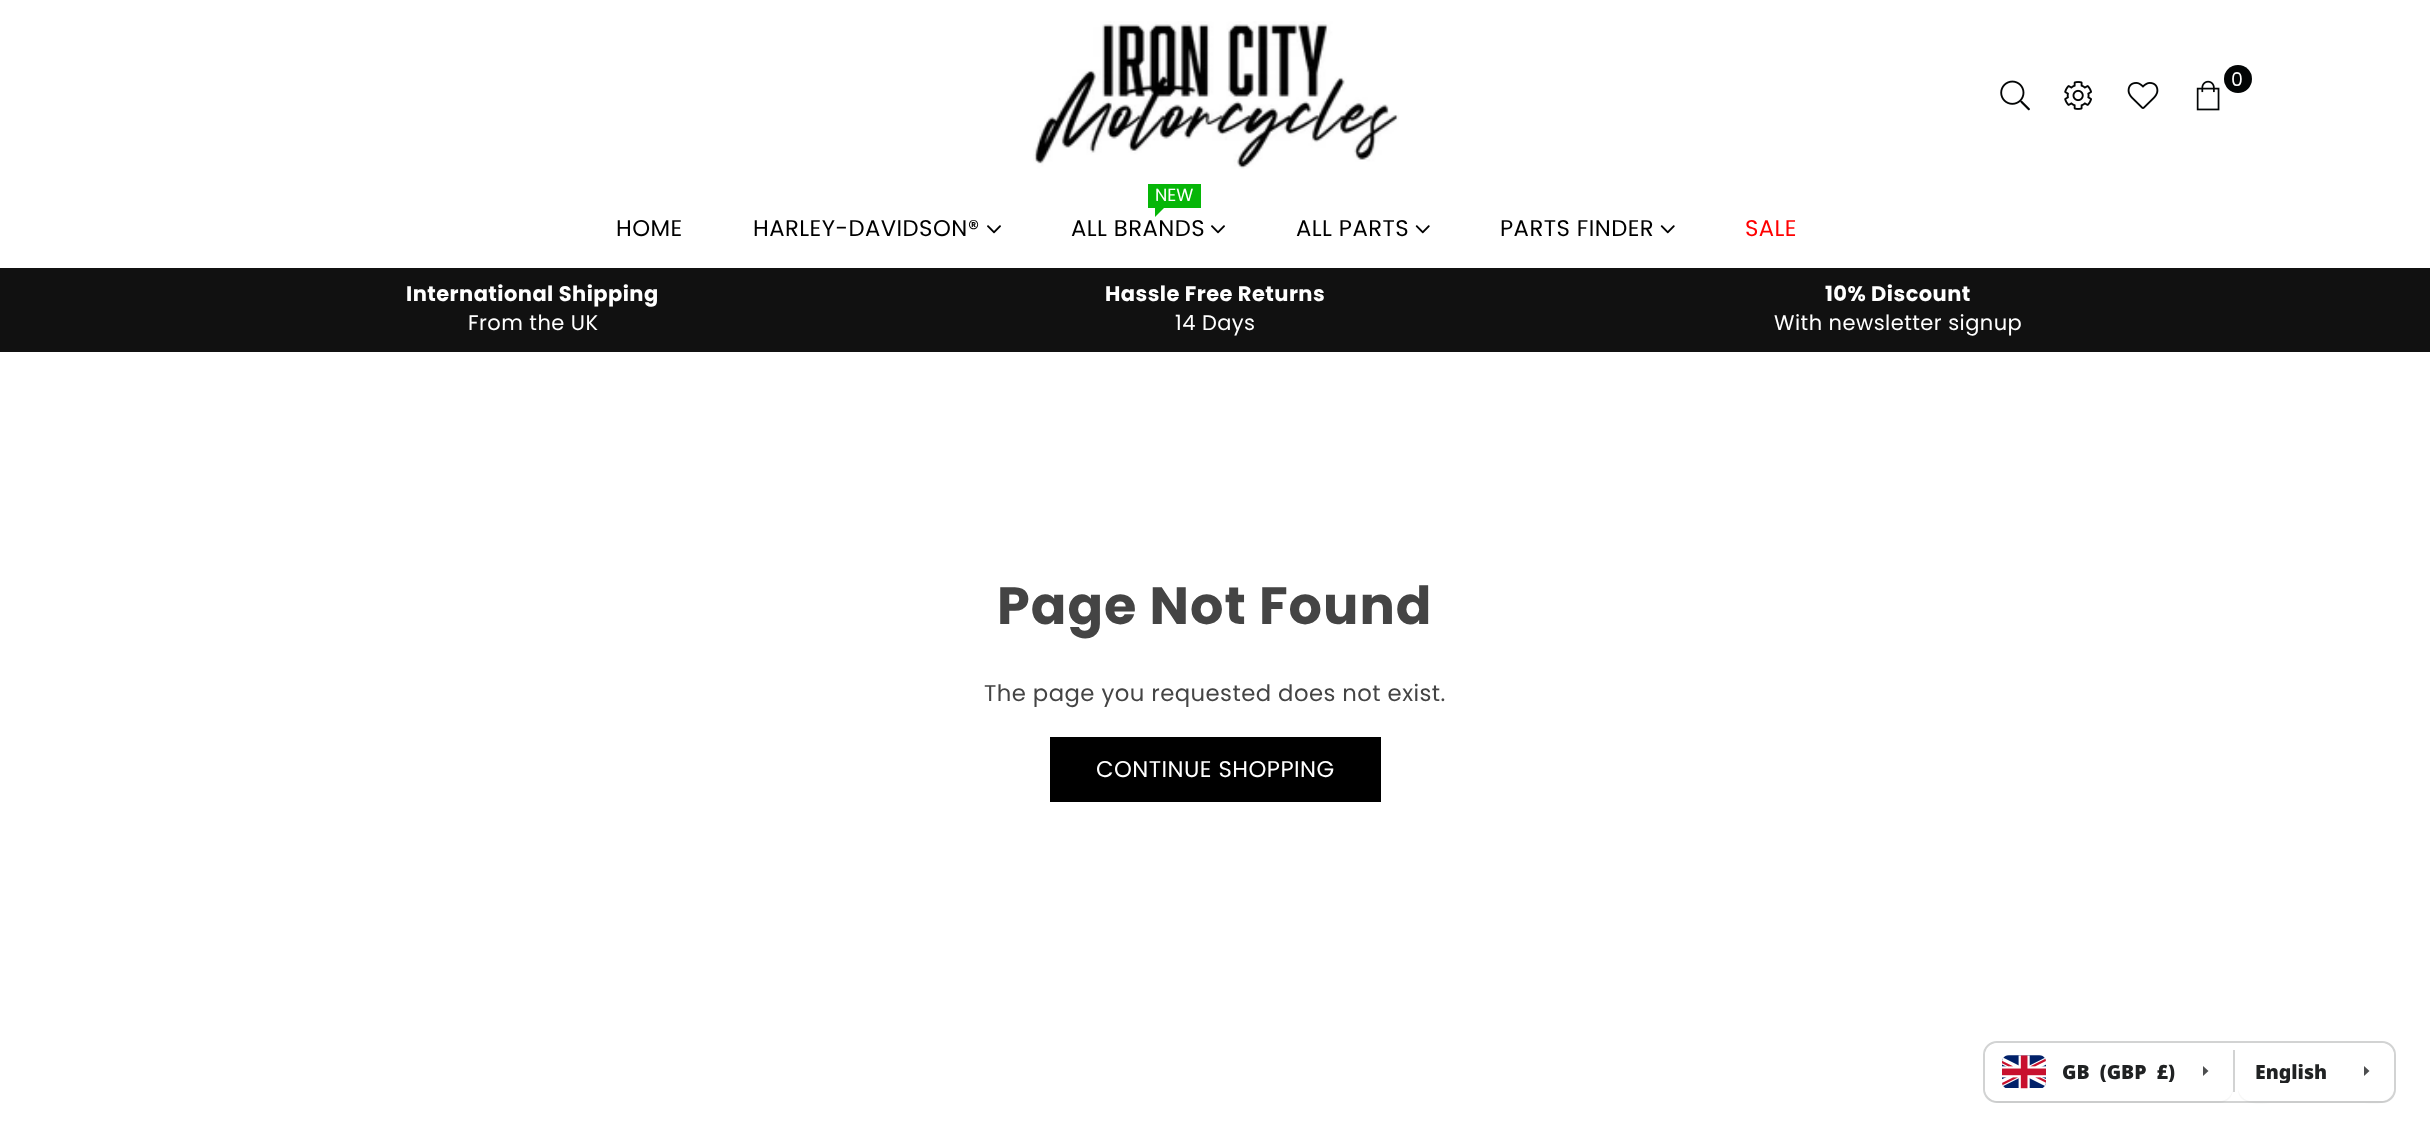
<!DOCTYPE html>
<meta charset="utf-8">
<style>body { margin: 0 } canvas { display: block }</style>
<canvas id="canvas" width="2430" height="1137"></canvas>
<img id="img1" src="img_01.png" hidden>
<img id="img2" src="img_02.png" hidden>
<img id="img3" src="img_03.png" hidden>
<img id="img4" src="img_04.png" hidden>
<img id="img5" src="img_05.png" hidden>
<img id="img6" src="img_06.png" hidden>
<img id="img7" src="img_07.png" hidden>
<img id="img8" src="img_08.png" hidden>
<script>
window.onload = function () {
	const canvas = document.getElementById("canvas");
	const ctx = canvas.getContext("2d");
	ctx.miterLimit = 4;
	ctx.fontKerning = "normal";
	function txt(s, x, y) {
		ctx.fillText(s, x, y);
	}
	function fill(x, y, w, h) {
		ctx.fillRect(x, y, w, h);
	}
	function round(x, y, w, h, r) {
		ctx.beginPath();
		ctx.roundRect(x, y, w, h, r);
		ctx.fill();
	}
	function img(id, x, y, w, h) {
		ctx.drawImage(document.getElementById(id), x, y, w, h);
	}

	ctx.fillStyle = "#FFFFFF";
	fill(0, 0, 2430, 1137);
	img("img1", 1033, 21, 366, 148);
	ctx.fillStyle = "#030505";
	ctx.beginPath();
	ctx.arc(2238, 79, 14, 0, Math.PI * 2);
	ctx.fill();
	img("img2", 2196, 80, 24, 31);
	img("img3", 2000, 80, 30, 31);
	img("img4", 2064, 81, 28, 29);
	img("img5", 2127, 82, 32, 27);
	img("img6", 987, 225, 14, 9);
	ctx.fillStyle = "#06B608";
	fill(1148, 184, 53, 24);
	img("img6", 1211, 225, 14, 9);
	img("img7", 1415, 225, 15, 9);
	img("img7", 1660, 225, 15, 9);
	ctx.fillStyle = "#111111";
	fill(0, 268, 2430, 84);
	ctx.fillStyle = "#000000";
	fill(1050, 737, 331, 65);
	ctx.beginPath();
	ctx.roundRect(1984, 1042, 411, 60, 13);
	ctx.strokeStyle = "#D2D3D3";
	ctx.lineWidth = 2;
	ctx.stroke();
	ctx.fillStyle = "rgba(0, 0, 0, 0.03)";
	ctx.beginPath();
	ctx.moveTo(1985, 1091);
	ctx.bezierCurveTo(1986, 1098, 1992, 1103, 1999, 1103);
	ctx.lineTo(2219, 1103);
	ctx.bezierCurveTo(2227, 1103, 2233, 1097, 2233, 1089);
	ctx.lineTo(2233, 1087);
	ctx.bezierCurveTo(2233, 1094, 2227, 1101, 2219, 1101);
	ctx.lineTo(1998, 1101);
	ctx.bezierCurveTo(1992, 1101, 1987, 1097, 1985, 1091);
	ctx.closePath();
	ctx.fill();
	ctx.fillStyle = "#FFFFFF";
	round(1985, 1043, 248, 58, 14);
	img("img8", 2002, 1055, 44, 34);
	ctx.fillStyle = "#4D4E4F";
	ctx.beginPath();
	ctx.moveTo(2203, 1076);
	ctx.lineTo(2203, 1066);
	ctx.lineTo(2208.5, 1071);
	ctx.closePath();
	ctx.fill();
	ctx.fillStyle = "#D2D3D3";
	fill(2233, 1050, 2, 42);
	ctx.fillStyle = "rgba(0, 0, 0, 0.03)";
	ctx.beginPath();
	ctx.moveTo(2238, 1056);
	ctx.lineTo(2238, 1092);
	ctx.bezierCurveTo(2241, 1107, 2263, 1103, 2273, 1103);
	ctx.lineTo(2359, 1103);
	ctx.bezierCurveTo(2374, 1103, 2394, 1108, 2394, 1087);
	ctx.bezierCurveTo(2394, 1094, 2388, 1101, 2380, 1101);
	ctx.lineTo(2252, 1101);
	ctx.bezierCurveTo(2245, 1101, 2238, 1094, 2238, 1087);
	ctx.closePath();
	ctx.fill();
	ctx.fillStyle = "#FFFFFF";
	round(2238, 1043, 156, 58, 14);
	ctx.fillStyle = "#4D4E4F";
	ctx.beginPath();
	ctx.moveTo(2364, 1076);
	ctx.lineTo(2364, 1066);
	ctx.lineTo(2369.5, 1071);
	ctx.closePath();
	ctx.fill();
	ctx.letterSpacing = "0.45px";
	ctx.font = "19px Poppins";
	ctx.fillStyle = "#FFFFFF";
	txt("0", 2231, 86);
	ctx.font = "22.75px Poppins";
	ctx.fillStyle = "#000000";
	txt("HOME", 616, 236);
	txt("HARLEY-DAVIDSON®", 753, 236);
	ctx.letterSpacing = "0px";
	ctx.font = "17.5px Poppins";
	ctx.fillStyle = "#FFFFFF";
	txt("NEW", 1155, 201);
	ctx.fillStyle = "#06B608";
	ctx.beginPath();
	ctx.moveTo(1155, 217);
	ctx.lineTo(1155, 199.5);
	ctx.lineTo(1164, 208);
	ctx.closePath();
	ctx.fill();
	ctx.letterSpacing = "0.45px";
	ctx.font = "22.75px Poppins";
	ctx.fillStyle = "#000000";
	txt("ALL BRANDS", 1071, 236);
	txt("ALL PARTS", 1296, 236);
	txt("PARTS FINDER", 1500, 236);
	ctx.fillStyle = "#FF0000";
	txt("SALE", 1745, 236);
	ctx.font = "bold 21px Poppins";
	ctx.fillStyle = "#FFFFFF";
	txt("International Shipping", 406, 301);
	ctx.font = "21px Poppins";
	txt("From the UK", 468, 330);
	ctx.font = "bold 21px Poppins";
	txt("Hassle Free Returns", 1105, 301);
	ctx.font = "21px Poppins";
	txt("14 Days", 1175, 330);
	ctx.font = "bold 21px Poppins";
	txt("10% Discount", 1825, 301);
	ctx.font = "21px Poppins";
	txt("With newsletter signup", 1774, 330);
	ctx.letterSpacing = "1px";
	ctx.font = "bold 52.5px Poppins";
	ctx.fillStyle = "#444444";
	txt("Page Not Found", 997, 624);
	ctx.letterSpacing = "0.45px";
	ctx.font = "22.75px Poppins";
	txt("The page you requested does not exist.", 984, 701);
	ctx.fillStyle = "#FFFFFF";
	txt("CONTINUE SHOPPING", 1096, 777);
	ctx.letterSpacing = "0px";
	ctx.wordSpacing = "5px";
	ctx.font = "900 19.5px Noto Sans";
	ctx.fillStyle = "#202223";
	txt("GB (GBP £)", 2062, 1079);
	ctx.save();
	ctx.beginPath();
	ctx.rect(2256, 1061, 82, 22);
	ctx.clip();
	ctx.wordSpacing = "0px";
	txt("English", 2255, 1079);
	ctx.restore();
};
</script>
